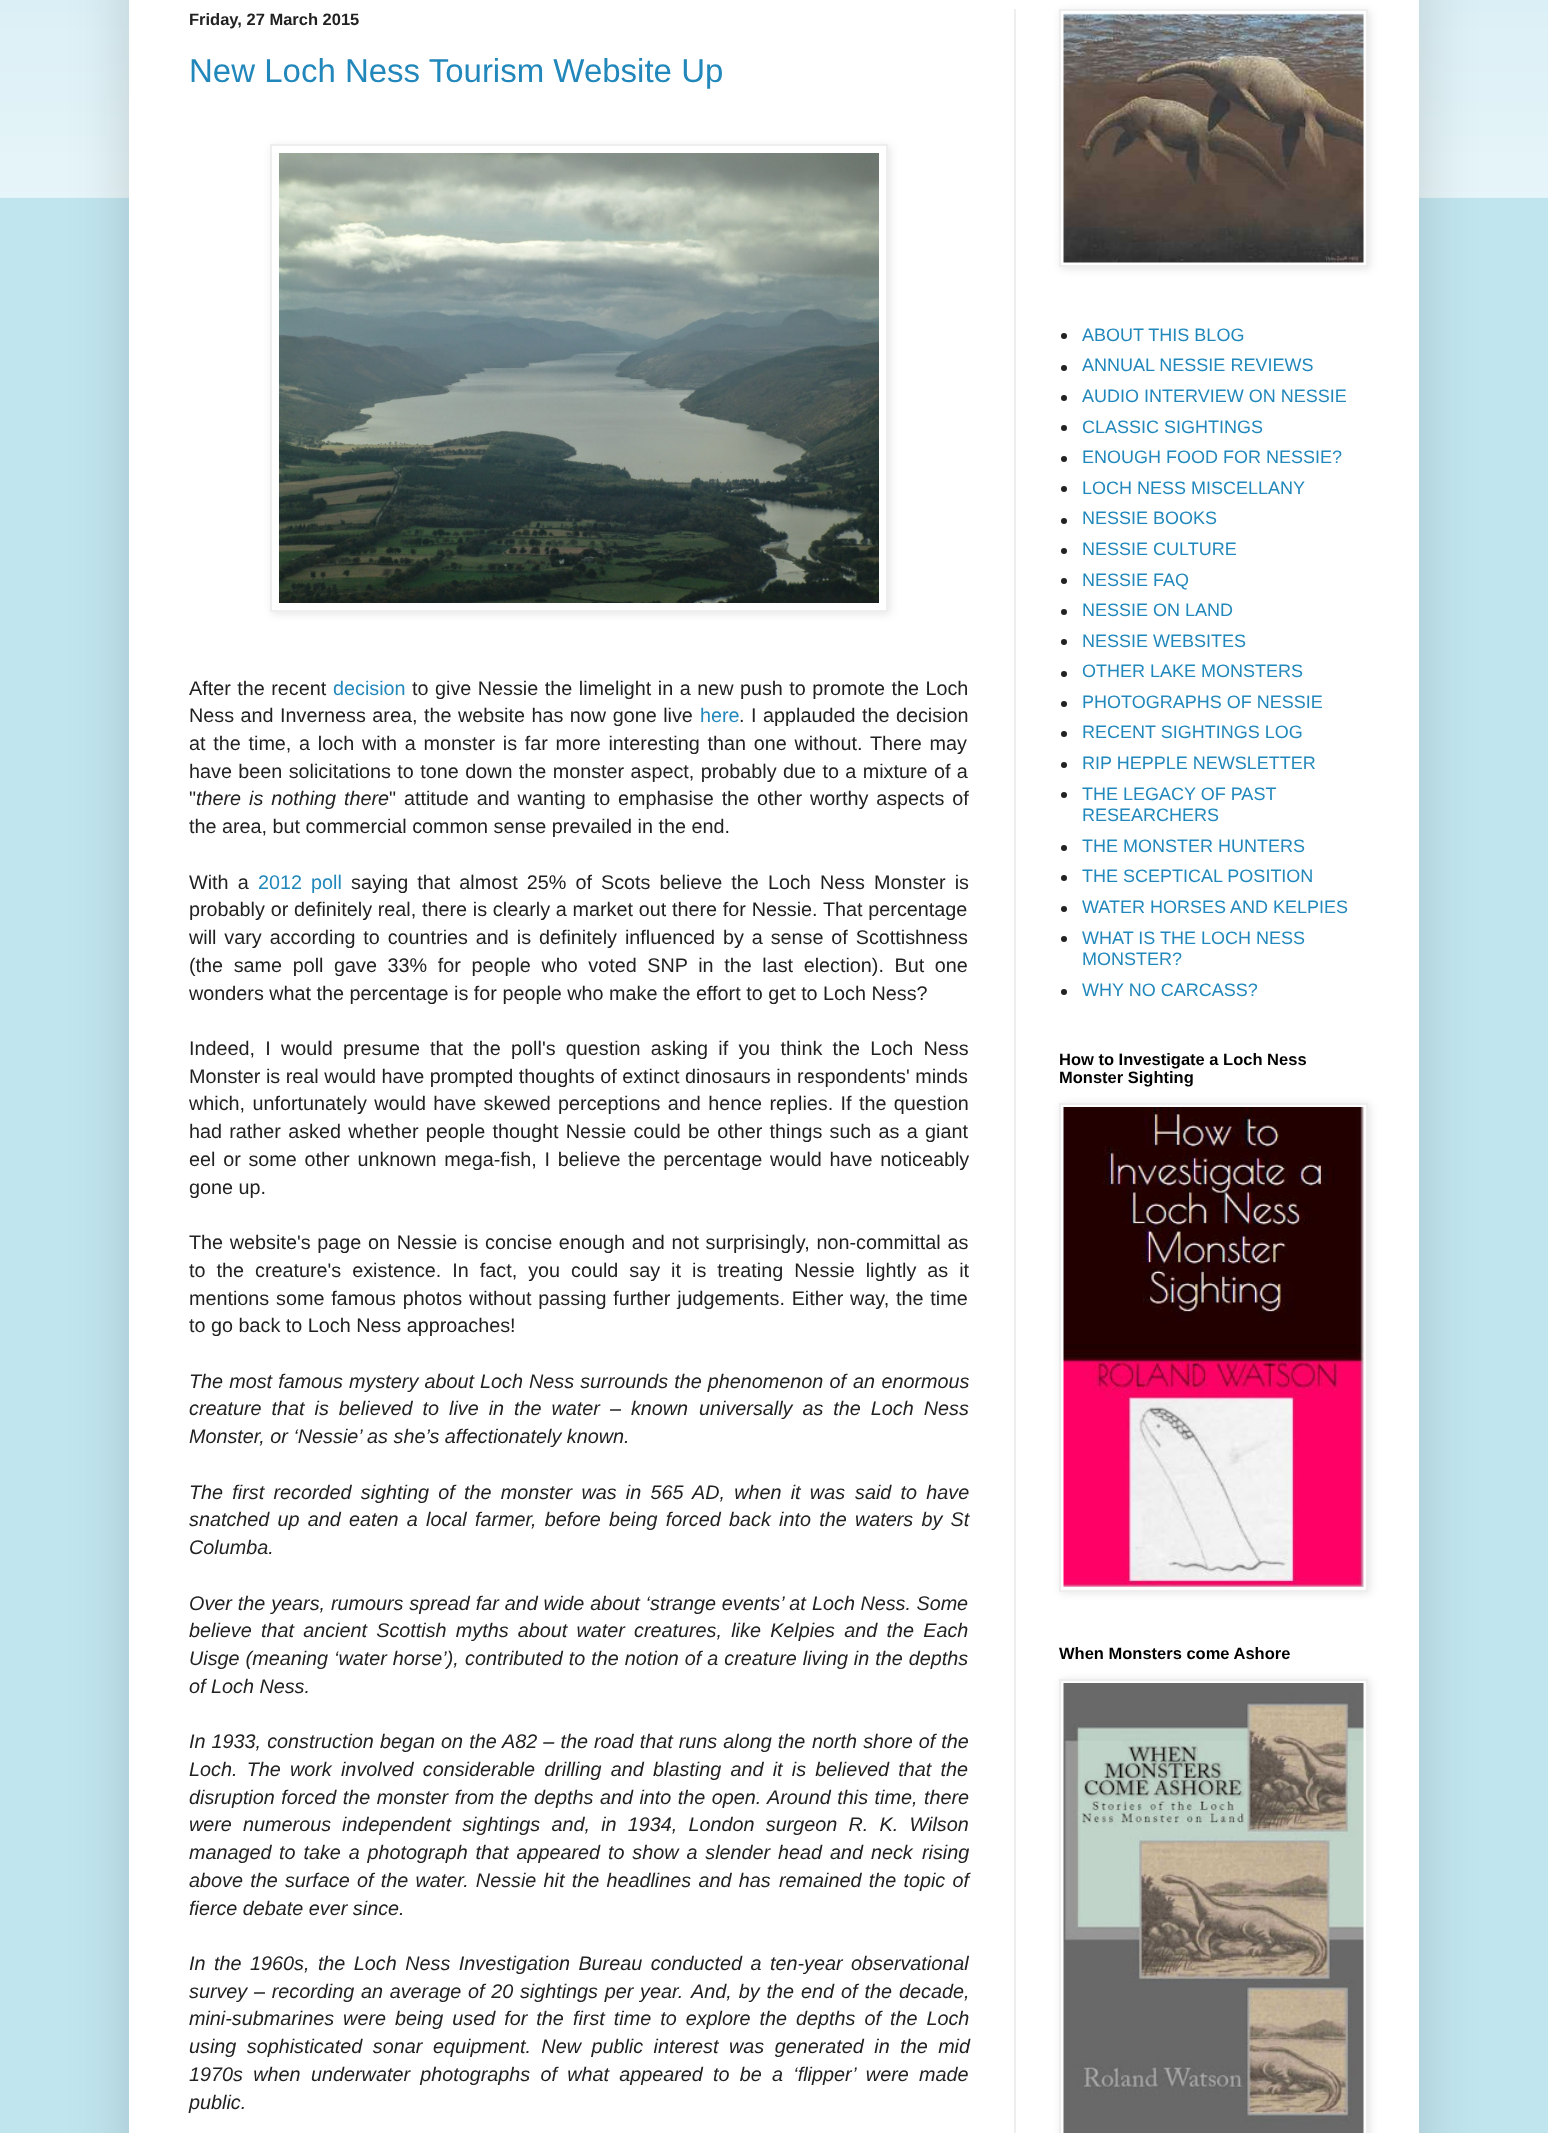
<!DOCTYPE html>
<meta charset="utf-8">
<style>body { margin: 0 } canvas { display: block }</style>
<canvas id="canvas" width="1548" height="2133"></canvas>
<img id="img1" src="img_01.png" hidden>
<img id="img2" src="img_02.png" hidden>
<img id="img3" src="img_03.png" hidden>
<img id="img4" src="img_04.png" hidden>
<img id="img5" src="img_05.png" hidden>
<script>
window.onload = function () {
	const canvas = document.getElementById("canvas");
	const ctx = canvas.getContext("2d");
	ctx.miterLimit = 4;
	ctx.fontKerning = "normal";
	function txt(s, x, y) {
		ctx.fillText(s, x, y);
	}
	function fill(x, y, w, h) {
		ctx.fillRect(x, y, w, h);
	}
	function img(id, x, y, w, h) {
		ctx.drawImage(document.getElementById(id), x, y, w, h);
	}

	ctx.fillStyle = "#C1E5EF";
	fill(0, 0, 1548, 2133);
	img("img1", 0, 0, 1548, 198);
	ctx.fillStyle = "rgba(0, 0, 0, 0.15)";
	ctx.filter = "blur(30px)";
	ctx.beginPath();
	ctx.rect(129, -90, 1290, 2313);
	ctx.fill();
	ctx.filter = "none";
	ctx.fillStyle = "#FFFFFF";
	fill(129, 0, 1290, 2133);
	ctx.fillStyle = "#EEEEEE";
	fill(1014, 9, 2, 2124);
	ctx.save();
	ctx.beginPath();
	ctx.moveTo(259, 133);
	ctx.lineTo(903, 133);
	ctx.lineTo(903, 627);
	ctx.lineTo(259, 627);
	ctx.closePath();
	ctx.moveTo(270, 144);
	ctx.lineTo(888, 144);
	ctx.lineTo(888, 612);
	ctx.lineTo(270, 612);
	ctx.closePath();
	ctx.clip("evenodd");
	ctx.fillStyle = "rgba(0, 0, 0, 0.1)";
	ctx.filter = "blur(4px)";
	ctx.beginPath();
	ctx.rect(272, 146, 618, 468);
	ctx.fill();
	ctx.filter = "none";
	ctx.restore();
	ctx.strokeStyle = "#EEEEEE";
	ctx.lineWidth = 2;
	ctx.strokeRect(271, 145, 616, 466);
	img("img2", 279, 153, 600, 450);
	ctx.save();
	ctx.beginPath();
	ctx.moveTo(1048, 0);
	ctx.lineTo(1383, 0);
	ctx.lineTo(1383, 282);
	ctx.lineTo(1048, 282);
	ctx.closePath();
	ctx.moveTo(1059, 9);
	ctx.lineTo(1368, 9);
	ctx.lineTo(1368, 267);
	ctx.lineTo(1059, 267);
	ctx.closePath();
	ctx.clip("evenodd");
	ctx.fillStyle = "rgba(0, 0, 0, 0.1)";
	ctx.filter = "blur(4px)";
	ctx.beginPath();
	ctx.rect(1061, 11, 309, 258);
	ctx.fill();
	ctx.filter = "none";
	ctx.restore();
	ctx.strokeRect(1060, 10, 307, 256);
	img("img3", 1063, 13, 301, 250);
	ctx.fillStyle = "#222222";
	ctx.beginPath();
	ctx.arc(1064, 336, 3, 0, Math.PI * 2);
	ctx.fill();
	ctx.beginPath();
	ctx.arc(1064, 368, 3, 0, Math.PI * 2);
	ctx.fill();
	ctx.beginPath();
	ctx.arc(1064, 398, 3, 0, Math.PI * 2);
	ctx.fill();
	ctx.beginPath();
	ctx.arc(1064, 428, 3, 0, Math.PI * 2);
	ctx.fill();
	ctx.beginPath();
	ctx.arc(1064, 459, 3, 0, Math.PI * 2);
	ctx.fill();
	ctx.beginPath();
	ctx.arc(1064, 489, 3, 0, Math.PI * 2);
	ctx.fill();
	ctx.beginPath();
	ctx.arc(1064, 521, 3, 0, Math.PI * 2);
	ctx.fill();
	ctx.beginPath();
	ctx.arc(1064, 551, 3, 0, Math.PI * 2);
	ctx.fill();
	ctx.beginPath();
	ctx.arc(1064, 581, 3, 0, Math.PI * 2);
	ctx.fill();
	ctx.beginPath();
	ctx.arc(1064, 612, 3, 0, Math.PI * 2);
	ctx.fill();
	ctx.beginPath();
	ctx.arc(1064, 642, 3, 0, Math.PI * 2);
	ctx.fill();
	ctx.beginPath();
	ctx.arc(1064, 674, 3, 0, Math.PI * 2);
	ctx.fill();
	ctx.beginPath();
	ctx.arc(1064, 704, 3, 0, Math.PI * 2);
	ctx.fill();
	ctx.beginPath();
	ctx.arc(1064, 734, 3, 0, Math.PI * 2);
	ctx.fill();
	ctx.beginPath();
	ctx.arc(1064, 765, 3, 0, Math.PI * 2);
	ctx.fill();
	ctx.beginPath();
	ctx.arc(1064, 795, 3, 0, Math.PI * 2);
	ctx.fill();
	ctx.beginPath();
	ctx.arc(1064, 848, 3, 0, Math.PI * 2);
	ctx.fill();
	ctx.beginPath();
	ctx.arc(1064, 878, 3, 0, Math.PI * 2);
	ctx.fill();
	ctx.beginPath();
	ctx.arc(1064, 909, 3, 0, Math.PI * 2);
	ctx.fill();
	ctx.beginPath();
	ctx.arc(1064, 939, 3, 0, Math.PI * 2);
	ctx.fill();
	ctx.beginPath();
	ctx.arc(1064, 992, 3, 0, Math.PI * 2);
	ctx.fill();
	ctx.fillStyle = "rgba(0, 0, 0, 0.1)";
	ctx.filter = "blur(4px)";
	ctx.beginPath();
	ctx.rect(1061, 1104, 309, 489);
	ctx.fill();
	ctx.filter = "none";
	ctx.fillStyle = "#FFFFFF";
	ctx.beginPath();
	ctx.rect(1060, 1104, 307, 487);
	ctx.fill();
	ctx.stroke();
	img("img4", 1063, 1107, 301, 480);
	ctx.save();
	ctx.beginPath();
	ctx.moveTo(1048, 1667);
	ctx.lineTo(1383, 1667);
	ctx.lineTo(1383, 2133);
	ctx.lineTo(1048, 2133);
	ctx.closePath();
	ctx.moveTo(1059, 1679);
	ctx.lineTo(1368, 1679);
	ctx.lineTo(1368, 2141);
	ctx.lineTo(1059, 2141);
	ctx.closePath();
	ctx.clip("evenodd");
	ctx.fillStyle = "rgba(0, 0, 0, 0.1)";
	ctx.filter = "blur(4px)";
	ctx.beginPath();
	ctx.rect(1061, 1680, 309, 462);
	ctx.fill();
	ctx.filter = "none";
	ctx.restore();
	ctx.strokeRect(1060, 1680, 307, 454);
	img("img5", 1063, 1683, 301, 450);
	ctx.font = "bold 16.5px Liberation Sans";
	ctx.fillStyle = "#222222";
	txt("Friday, 27 March 2015", 189, 25);
	ctx.font = "33px Liberation Sans";
	ctx.fillStyle = "#2288BB";
	txt("New Loch Ness Tourism Website Up", 189, 82);
	ctx.wordSpacing = "1px";
	ctx.font = "19.8px Liberation Sans";
	ctx.fillStyle = "#222222";
	txt("After the recent", 189, 695);
	ctx.wordSpacing = "0px";
	ctx.fillStyle = "#2288BB";
	txt("decision", 333, 695);
	ctx.wordSpacing = "1px";
	ctx.fillStyle = "#222222";
	txt("to give Nessie the limelight in a new push to promote the Loch", 412, 695);
	txt("Ness and Inverness area, the website has now gone live", 189, 722);
	ctx.wordSpacing = "0px";
	ctx.fillStyle = "#2288BB";
	txt("here", 700, 722);
	ctx.wordSpacing = "1px";
	ctx.fillStyle = "#222222";
	txt(". I applauded the decision", 739, 722);
	ctx.wordSpacing = "2.25px";
	txt("at the time, a loch with a monster is far more interesting than one without. There may", 189, 750);
	ctx.wordSpacing = "0.9px";
	txt("have been solicitations to tone down the monster aspect, probably due to a mixture of a", 189, 778);
	ctx.wordSpacing = "0px";
	txt("\"", 189, 805);
	ctx.wordSpacing = "2.4px";
	ctx.font = "italic 19.8px Liberation Sans";
	txt("there is nothing there", 196, 805);
	ctx.font = "19.8px Liberation Sans";
	txt("\" attitude and wanting to emphasise the other worthy aspects of", 389, 805);
	ctx.wordSpacing = "0px";
	txt("the area, but commercial common sense prevailed in the end.", 189, 833);
	ctx.wordSpacing = "3.6px";
	txt("With a", 189, 889);
	ctx.fillStyle = "#2288BB";
	txt("2012 poll", 258, 889);
	ctx.fillStyle = "#222222";
	txt("saying that almost 25% of Scots believe the Loch Ness Monster is", 351, 889);
	ctx.wordSpacing = "0.25px";
	txt("probably or definitely real, there is clearly a market out there for Nessie. That percentage", 189, 916);
	ctx.wordSpacing = "2.4px";
	txt("will vary according to countries and is definitely influenced by a sense of Scottishness", 189, 944);
	ctx.wordSpacing = "5.1px";
	txt("(the same poll gave 33% for people who voted SNP in the last election). But one", 189, 972);
	ctx.wordSpacing = "0px";
	txt("wonders what the percentage is for people who make the effort to get to Loch Ness?", 189, 1000);
	ctx.wordSpacing = "4.75px";
	txt("Indeed, I would presume that the poll's question asking if you think the Loch Ness", 189, 1055);
	ctx.wordSpacing = "0px";
	txt("Monster is real would have prompted thoughts of extinct dinosaurs in respondents' minds", 189, 1083);
	ctx.wordSpacing = "1.9px";
	txt("which, unfortunately would have skewed perceptions and hence replies. If the question", 189, 1110);
	ctx.wordSpacing = "1.75px";
	txt("had rather asked whether people thought Nessie could be other things such as a giant", 189, 1138);
	ctx.wordSpacing = "2.25px";
	txt("eel or some other unknown mega-fish, I believe the percentage would have noticeably", 189, 1166);
	ctx.wordSpacing = "0px";
	txt("gone up.", 189, 1194);
	ctx.wordSpacing = "1.25px";
	txt("The website's page on Nessie is concise enough and not surprisingly, non-committal as", 189, 1249);
	ctx.wordSpacing = "5.5px";
	txt("to the creature's existence. In fact, you could say it is treating Nessie lightly as it", 189, 1277);
	ctx.wordSpacing = "1.25px";
	txt("mentions some famous photos without passing further judgements. Either way, the time", 189, 1305);
	ctx.wordSpacing = "0px";
	txt("to go back to Loch Ness approaches!", 189, 1332);
	ctx.wordSpacing = "0.6px";
	ctx.font = "italic 19.8px Liberation Sans";
	txt("The most famous mystery about Loch Ness surrounds the phenomenon of", 189, 1388);
	ctx.wordSpacing = "1px";
	txt("an enormous", 853, 1388);
	ctx.wordSpacing = "4.5px";
	txt("creature that is believed to live in the water – known", 189, 1415);
	txt("universally as the Loch Ness", 699, 1415);
	ctx.wordSpacing = "0px";
	txt("Monster, or ‘Nessie’ as she’s affectionately known.", 189, 1443);
	ctx.wordSpacing = "3.75px";
	txt("The first recorded sighting of the monster was in 565 AD, when it was", 189, 1499);
	txt("said to have", 855, 1499);
	ctx.wordSpacing = "2.75px";
	txt("snatched up and eaten a local farmer, before being forced", 189, 1526);
	txt("back into the waters by St", 729, 1526);
	ctx.wordSpacing = "0px";
	txt("Columba.", 189, 1554);
	ctx.wordSpacing = "0.4px";
	txt("Over the years, rumours spread far and wide about ‘strange events’ at", 189, 1610);
	ctx.wordSpacing = "0px";
	txt("Loch Ness. Some", 812, 1610);
	ctx.wordSpacing = "3.75px";
	txt("believe that ancient Scottish myths about water", 189, 1637);
	txt("creatures, like Kelpies and the Each", 634, 1637);
	ctx.wordSpacing = "0.5px";
	txt("Uisge (meaning ‘water horse’),", 189, 1665);
	txt("contributed to the notion of a creature living in the depths", 465, 1665);
	ctx.wordSpacing = "0px";
	txt("of Loch Ness.", 189, 1693);
	ctx.wordSpacing = "0.6px";
	txt("In 1933, construction began on the A82 – the road that runs along the", 189, 1748);
	txt("north shore of the", 812, 1748);
	ctx.wordSpacing = "3.75px";
	txt("Loch. The work involved considerable drilling and", 189, 1776);
	txt("blasting and it is believed that the", 653, 1776);
	ctx.wordSpacing = "1px";
	txt("disruption forced the monster from", 189, 1804);
	txt("the depths and into the open. Around this time, there", 500, 1804);
	ctx.wordSpacing = "5.75px";
	txt("were numerous", 189, 1831);
	txt("independent sightings and, in 1934, London surgeon R. K. Wilson", 342, 1831);
	ctx.wordSpacing = "0px";
	txt("managed", 189, 1859);
	ctx.wordSpacing = "2.4px";
	txt("to take a photograph that appeared to show a slender head and neck", 279, 1859);
	ctx.wordSpacing = "0px";
	txt("rising", 922, 1859);
	ctx.wordSpacing = "1.75px";
	txt("above the surface of the water. Nessie hit the headlines and has", 189, 1887);
	txt("remained the topic of", 779, 1887);
	ctx.wordSpacing = "0px";
	txt("fierce debate ever since.", 189, 1915);
	ctx.wordSpacing = "3px";
	txt("In the 1960s, the Loch Ness Investigation Bureau conducted a ten-year", 189, 1970);
	ctx.wordSpacing = "0px";
	txt("observational", 851, 1970);
	ctx.wordSpacing = "1.25px";
	txt("survey – recording an average of 20 sightings per year.", 189, 1998);
	ctx.wordSpacing = "1.5px";
	txt("And, by the end of the decade,", 691, 1998);
	ctx.wordSpacing = "3.5px";
	txt("mini-submarines were being used for the", 189, 2025);
	txt("first time to explore the depths of the Loch", 573, 2025);
	ctx.wordSpacing = "5px";
	txt("using sophisticated sonar", 189, 2053);
	txt("equipment. New public interest was generated in the mid", 433, 2053);
	ctx.wordSpacing = "4.75px";
	txt("1970s when", 189, 2081);
	txt("underwater photographs of what appeared to be a ‘flipper’ were made", 311, 2081);
	ctx.wordSpacing = "0px";
	txt("public.", 189, 2109);
	ctx.font = "18px Liberation Sans";
	ctx.fillStyle = "#2288BB";
	txt("ABOUT THIS BLOG", 1082, 341);
	txt("ANNUAL NESSIE REVIEWS", 1082, 371);
	txt("AUDIO INTERVIEW ON NESSIE", 1082, 402);
	txt("CLASSIC SIGHTINGS", 1082, 433);
	txt("ENOUGH FOOD FOR NESSIE?", 1082, 463);
	txt("LOCH NESS MISCELLANY", 1082, 494);
	txt("NESSIE BOOKS", 1082, 524);
	txt("NESSIE CULTURE", 1082, 555);
	txt("NESSIE FAQ", 1082, 586);
	txt("NESSIE ON LAND", 1082, 616);
	txt("NESSIE WEBSITES", 1082, 647);
	txt("OTHER LAKE MONSTERS", 1082, 677);
	txt("PHOTOGRAPHS OF NESSIE", 1082, 708);
	txt("RECENT SIGHTINGS LOG", 1082, 738);
	txt("RIP HEPPLE NEWSLETTER", 1082, 769);
	txt("THE LEGACY OF PAST", 1082, 800);
	txt("RESEARCHERS", 1082, 821);
	txt("THE MONSTER HUNTERS", 1082, 852);
	txt("THE SCEPTICAL POSITION", 1082, 882);
	txt("WATER HORSES AND KELPIES", 1082, 913);
	txt("WHAT IS THE LOCH NESS", 1082, 944);
	txt("MONSTER?", 1082, 965);
	txt("WHY NO CARCASS?", 1082, 996);
	ctx.font = "bold 16.5px Liberation Sans";
	ctx.fillStyle = "#000000";
	txt("How to Investigate a Loch Ness", 1059, 1065);
	txt("Monster Sighting", 1059, 1083);
	txt("When Monsters come Ashore", 1059, 1659);
};
</script>
